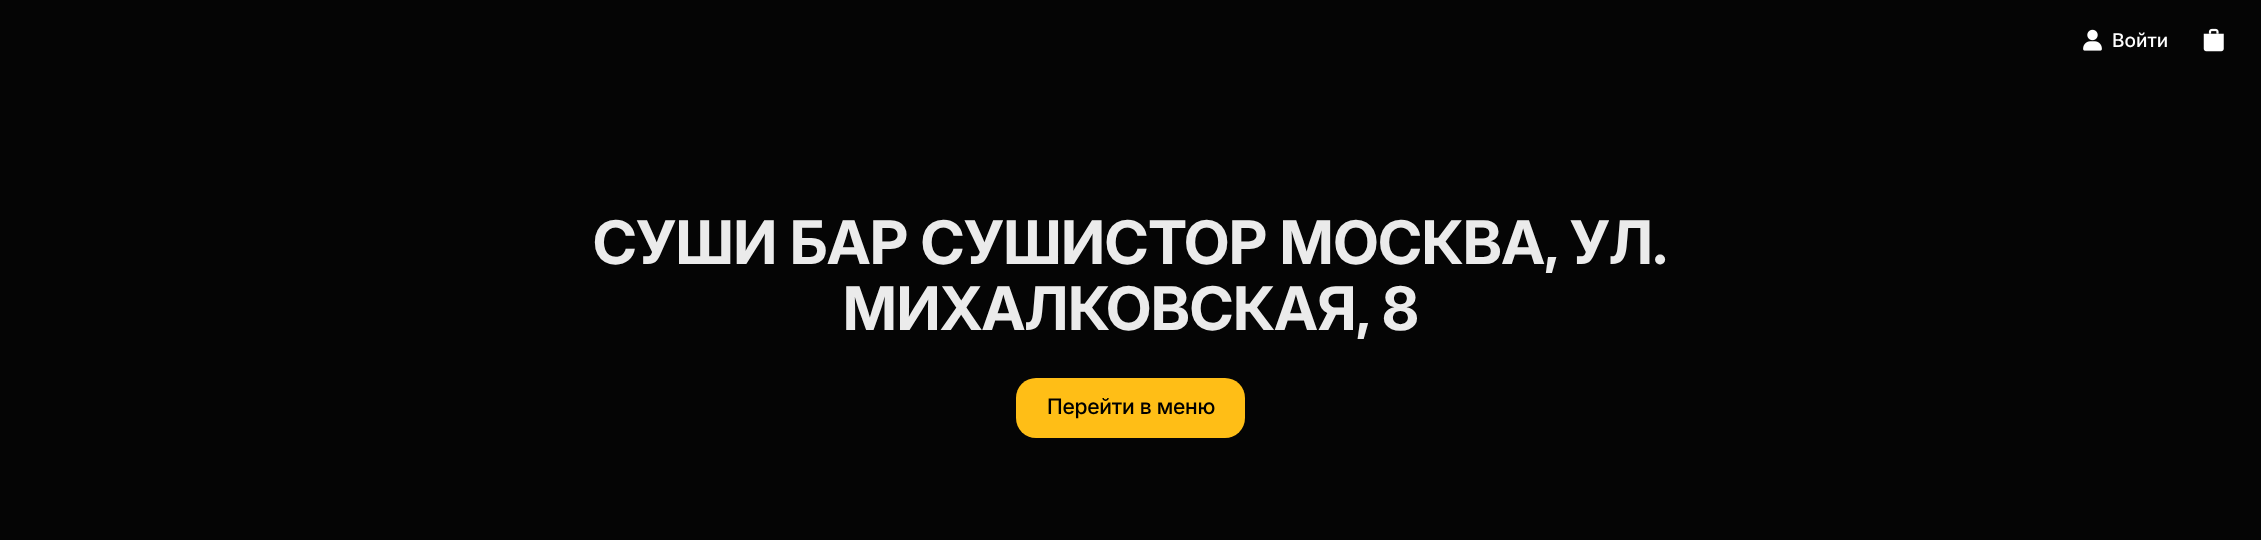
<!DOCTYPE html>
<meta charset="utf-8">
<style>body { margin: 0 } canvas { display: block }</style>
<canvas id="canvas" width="2261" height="540"></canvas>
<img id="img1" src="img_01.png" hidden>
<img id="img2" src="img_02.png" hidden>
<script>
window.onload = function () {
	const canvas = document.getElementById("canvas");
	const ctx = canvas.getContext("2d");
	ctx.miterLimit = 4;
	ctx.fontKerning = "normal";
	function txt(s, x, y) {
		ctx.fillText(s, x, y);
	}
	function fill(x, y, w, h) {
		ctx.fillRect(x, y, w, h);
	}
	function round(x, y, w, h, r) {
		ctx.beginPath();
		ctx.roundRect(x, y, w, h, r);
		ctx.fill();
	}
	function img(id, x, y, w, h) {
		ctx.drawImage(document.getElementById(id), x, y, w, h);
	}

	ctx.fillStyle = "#050505";
	fill(0, 0, 2261, 540);
	img("img1", 2083, 29, 19, 22);
	img("img2", 2203, 28, 21, 24);
	ctx.fillStyle = "#FFBE16";
	round(1016, 378, 229, 60, 20);
	ctx.font = "500 19px 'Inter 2'";
	ctx.fillStyle = "#FFFFFF";
	txt("Войти", 2112, 47);
	ctx.font = "bold 60px Inter";
	ctx.fillStyle = "#EBEBEB";
	txt("СУШИ БАР СУШИСТОР МОСКВА, УЛ.", 593, 264);
	txt("МИХАЛКОВСКАЯ, 8", 843, 330);
	ctx.letterSpacing = "-0.25px";
	ctx.font = "500 21.25px Inter";
	ctx.fillStyle = "#000000";
	txt("Перейти в меню", 1047, 414);
};
</script>
